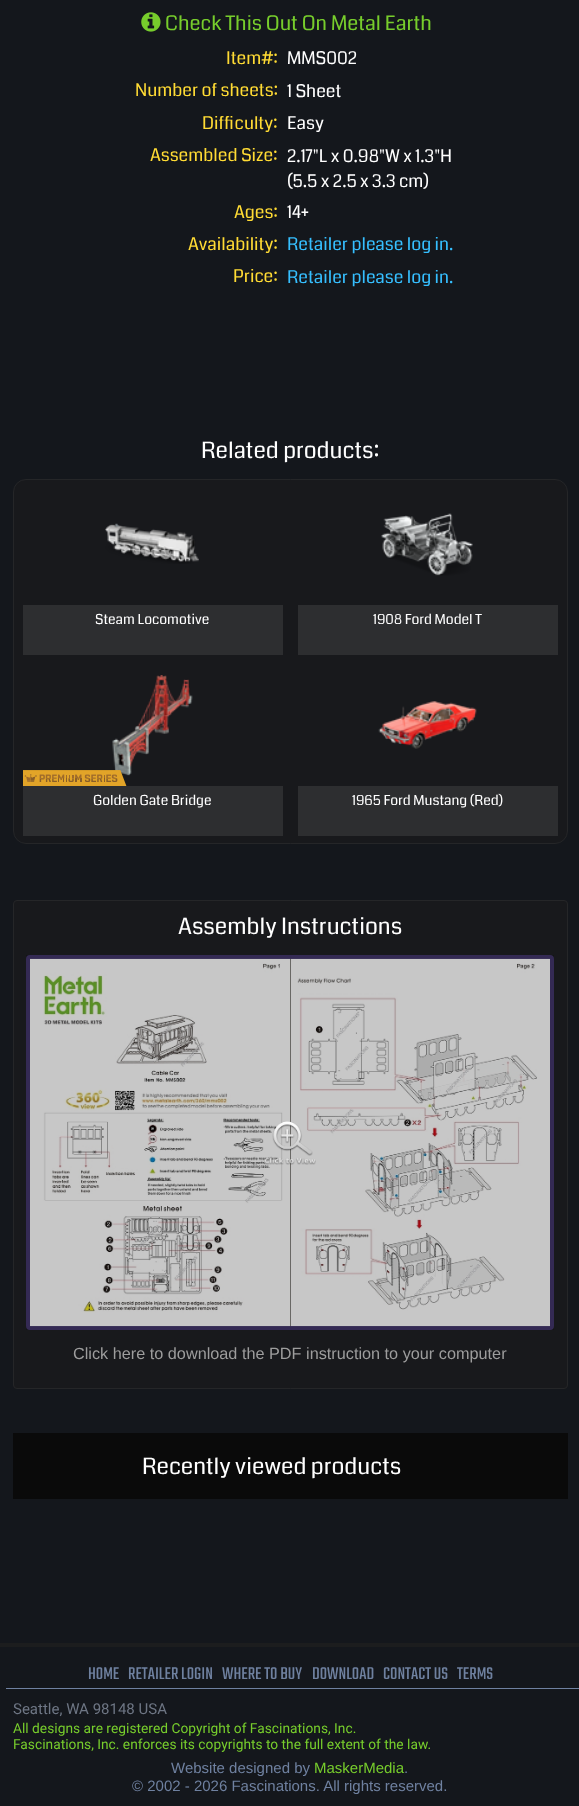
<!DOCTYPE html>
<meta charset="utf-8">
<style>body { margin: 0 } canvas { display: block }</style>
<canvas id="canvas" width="579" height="1806"></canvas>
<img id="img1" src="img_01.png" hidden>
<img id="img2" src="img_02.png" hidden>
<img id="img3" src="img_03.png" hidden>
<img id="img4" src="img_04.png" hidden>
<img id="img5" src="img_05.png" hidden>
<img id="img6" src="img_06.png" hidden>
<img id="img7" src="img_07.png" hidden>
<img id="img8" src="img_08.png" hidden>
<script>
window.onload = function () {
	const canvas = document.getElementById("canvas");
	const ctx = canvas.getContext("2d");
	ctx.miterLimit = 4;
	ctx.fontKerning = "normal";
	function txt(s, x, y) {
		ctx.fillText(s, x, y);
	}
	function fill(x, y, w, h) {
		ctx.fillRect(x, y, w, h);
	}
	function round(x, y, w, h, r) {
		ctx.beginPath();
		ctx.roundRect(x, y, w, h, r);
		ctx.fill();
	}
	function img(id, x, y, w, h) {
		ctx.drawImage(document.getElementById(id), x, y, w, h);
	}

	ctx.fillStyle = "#14171C";
	fill(0, 0, 579, 1806);
	img("img1", 141, 12, 20, 20);
	ctx.fillStyle = "#18191C";
	ctx.beginPath();
	ctx.roundRect(13.5, 479.5, 554, 364, 12.5);
	ctx.fill();
	ctx.strokeStyle = "#252628";
	ctx.stroke();
	img("img2", 105, 523, 94, 41);
	ctx.fillStyle = "#2D2E30";
	fill(23, 605, 260, 50);
	img("img3", 381, 513, 92, 63);
	fill(298, 605, 260, 50);
	img("img4", 112, 675, 81, 101);
	img("img5", 23, 770, 104, 16);
	fill(23, 786, 260, 50);
	img("img6", 378, 701, 99, 48);
	fill(298, 786, 260, 50);
	ctx.fillStyle = "#18191C";
	round(13, 900, 555, 489, 4);
	ctx.fillStyle = "#131416";
	fill(26, 955, 528, 375);
	ctx.beginPath();
	ctx.roundRect(13.5, 900.5, 554, 488, 3.5);
	ctx.stroke();
	ctx.beginPath();
	ctx.roundRect(28, 957, 524, 371, 2);
	ctx.strokeStyle = "#342A54";
	ctx.lineWidth = 4;
	ctx.stroke();
	img("img7", 30, 958, 520, 369);
	img("img8", 264, 1121, 52, 44);
	ctx.fillStyle = "#0A0A0A";
	fill(13, 1433, 555, 66);
	ctx.fillStyle = "#1C1D1E";
	fill(0, 1643, 579, 4);
	ctx.fillStyle = "#6F81A0";
	fill(6, 1688, 573, 1);
	ctx.font = "20px Coda";
	ctx.fillStyle = "#77CD2C";
	txt("Check This Out On Metal Earth", 165, 30);
	ctx.font = "17.5px Coda";
	ctx.fillStyle = "#FFDB34";
	txt("Item#:", 226, 64);
	ctx.fillStyle = "#FFFFFF";
	txt("MMS002", 287, 64);
	ctx.fillStyle = "#FFDB34";
	txt("Number of sheets:", 135, 96);
	ctx.fillStyle = "#FFFFFF";
	txt("1 Sheet", 287, 97);
	ctx.fillStyle = "#FFDB34";
	txt("Difficulty:", 202, 129);
	ctx.fillStyle = "#FFFFFF";
	txt("Easy", 287, 129);
	ctx.fillStyle = "#FFDB34";
	txt("Assembled Size:", 150, 161);
	ctx.fillStyle = "#FFFFFF";
	txt("2.17\"L x 0.98\"W x 1.3\"H", 287, 162);
	txt("(5.5 x 2.5 x 3.3 cm)", 287, 187);
	ctx.fillStyle = "#FFDB34";
	txt("Ages:", 234, 218);
	ctx.fillStyle = "#FFFFFF";
	txt("14+", 287, 218);
	ctx.fillStyle = "#FFDB34";
	txt("Availability:", 188, 250);
	ctx.fillStyle = "#36BFFF";
	txt("Retailer please log in.", 287, 250);
	ctx.fillStyle = "#FFDB34";
	txt("Price:", 233, 282);
	ctx.fillStyle = "#36BFFF";
	txt("Retailer please log in.", 287, 283);
	ctx.font = "22.5px Coda";
	ctx.fillStyle = "#FFFFFF";
	txt("Related products:", 201, 458);
	ctx.font = "13.75px Coda";
	txt("Steam Locomotive", 95, 624);
	txt("1908 Ford Model T", 373, 624);
	txt("Golden Gate Bridge", 93, 805);
	txt("1965 Ford Mustang (Red)", 352, 805);
	ctx.font = "22.5px Coda";
	txt("Assembly Instructions", 178, 934);
	ctx.font = "16.25px Liberation Sans";
	ctx.fillStyle = "#9D9D9D";
	txt("Click here to download the PDF instruction to your computer", 73, 1359);
	ctx.font = "22.5px Coda";
	ctx.fillStyle = "#FFFFFF";
	txt("Recently viewed products", 142, 1474);
	ctx.font = "300 18.75px Teko";
	ctx.fillStyle = "#6F81A0";
	txt("HOME", 88, 1679);
	txt("RETAILER LOGIN", 128, 1679);
	txt("WHERE TO BUY", 222, 1679);
	txt("DOWNLOAD", 312, 1679);
	txt("CONTACT US", 383, 1679);
	txt("TERMS", 457, 1679);
	ctx.font = "15px Heebo";
	ctx.fillStyle = "#6E7684";
	txt("Seattle, WA 98148 USA", 13, 1714);
	ctx.font = "13.75px Heebo";
	ctx.fillStyle = "#77CD2C";
	txt("All designs are registered Copyright of Fascinations, Inc.", 13, 1733);
	txt("Fascinations, Inc. enforces its copyrights to the full extent of the law.", 13, 1749);
	ctx.font = "15px Liberation Sans";
	ctx.fillStyle = "#6F81A0";
	txt("Website designed by", 171, 1773);
	ctx.fillStyle = "#77CD2C";
	txt("MaskerMedia", 314, 1773);
	ctx.fillStyle = "#6F81A0";
	txt(".", 404, 1773);
	txt("© 2002 - 2026 Fascinations. All rights reserved.", 132, 1791);
};
</script>
